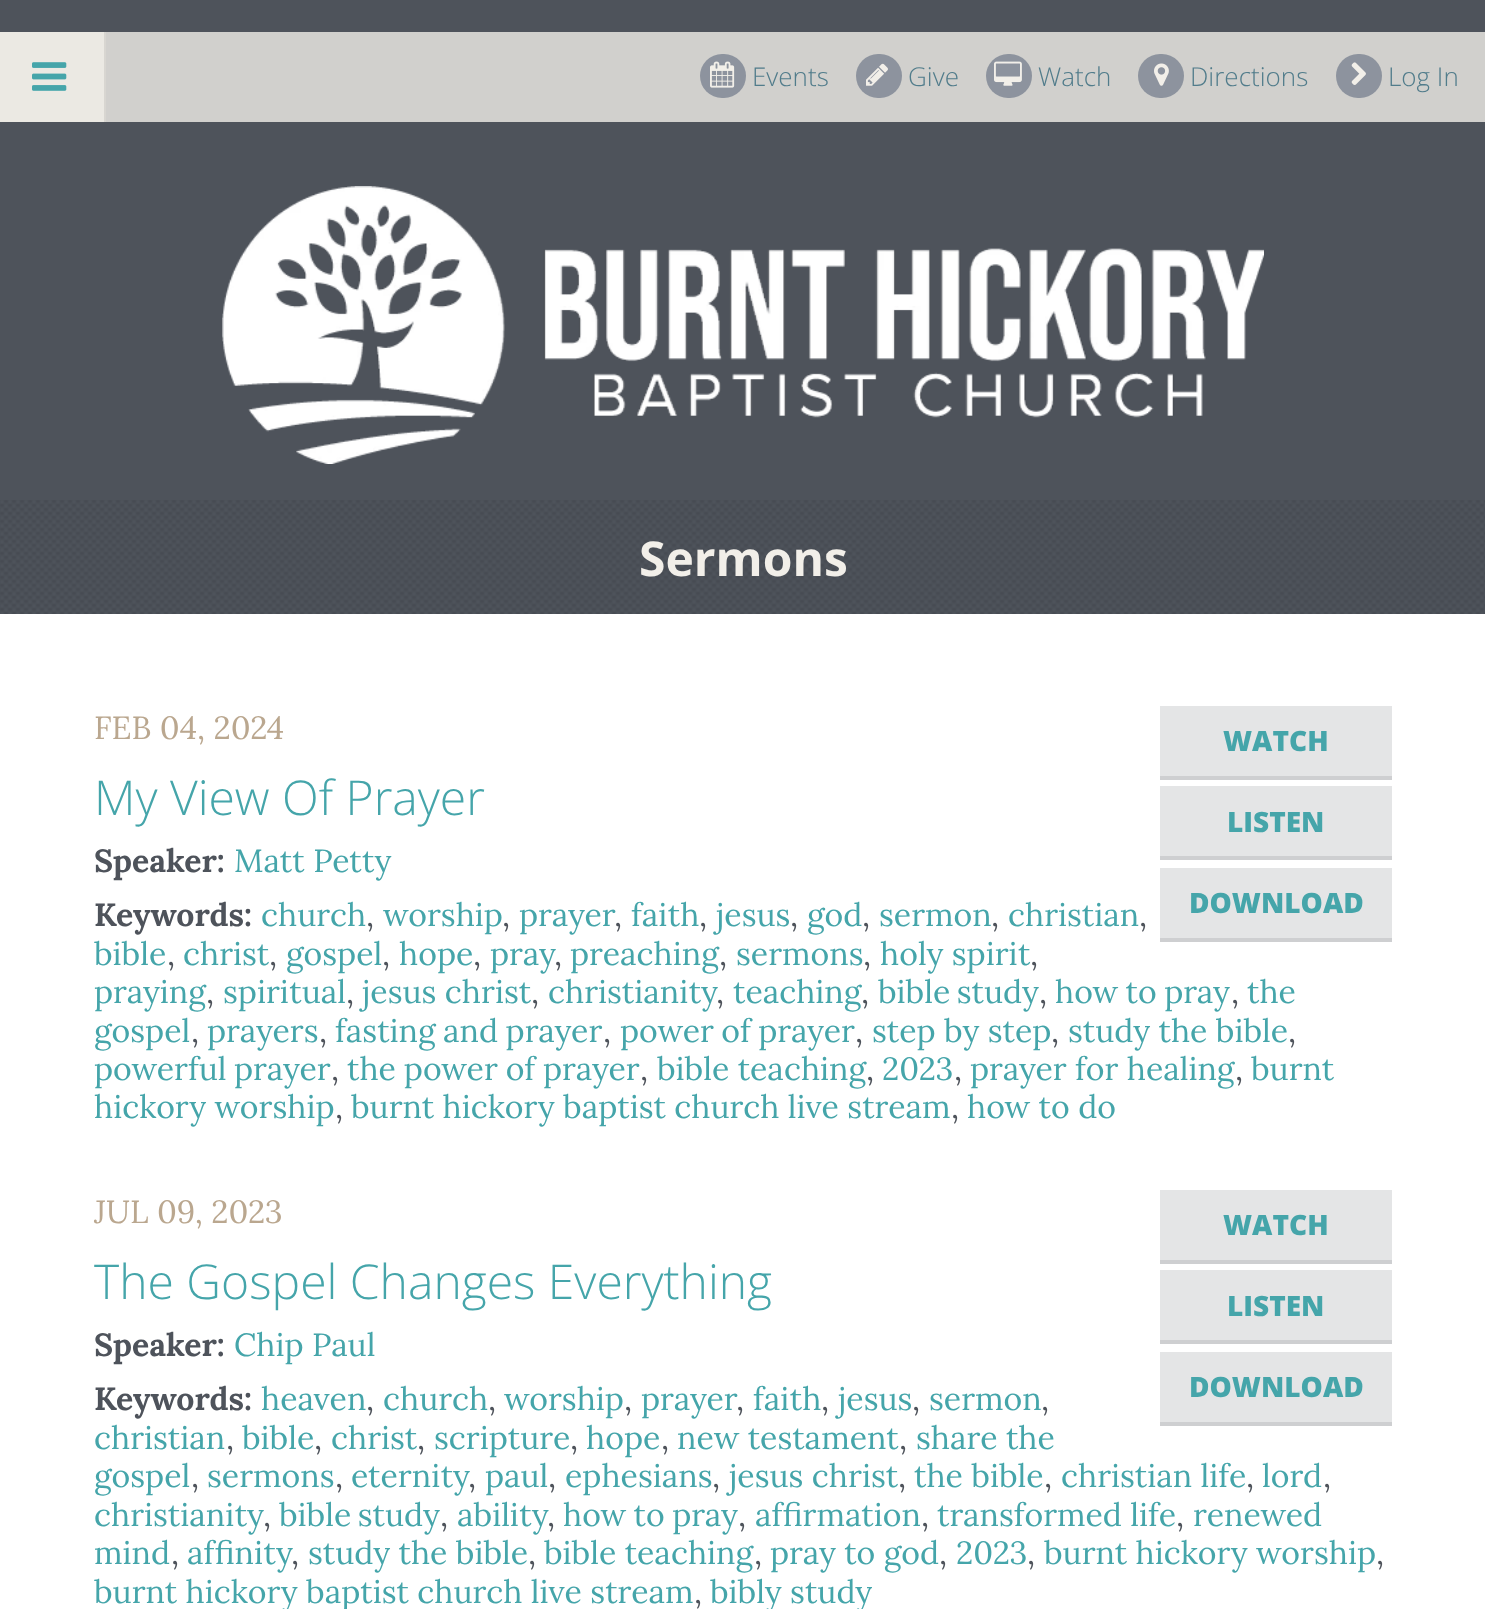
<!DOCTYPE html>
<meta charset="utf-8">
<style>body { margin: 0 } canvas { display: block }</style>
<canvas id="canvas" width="1485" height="1609"></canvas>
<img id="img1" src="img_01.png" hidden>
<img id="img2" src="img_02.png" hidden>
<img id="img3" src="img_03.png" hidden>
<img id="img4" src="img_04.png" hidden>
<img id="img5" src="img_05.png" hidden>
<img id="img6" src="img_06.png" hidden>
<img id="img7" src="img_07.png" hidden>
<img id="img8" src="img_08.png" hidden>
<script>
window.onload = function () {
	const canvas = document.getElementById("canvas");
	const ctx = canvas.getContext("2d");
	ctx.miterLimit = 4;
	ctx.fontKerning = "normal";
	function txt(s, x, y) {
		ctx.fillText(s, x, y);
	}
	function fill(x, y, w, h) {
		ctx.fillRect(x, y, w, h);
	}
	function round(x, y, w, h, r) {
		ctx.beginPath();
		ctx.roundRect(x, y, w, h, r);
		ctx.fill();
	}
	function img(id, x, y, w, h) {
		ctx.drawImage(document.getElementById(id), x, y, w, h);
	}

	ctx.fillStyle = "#4E535B";
	fill(0, 0, 1485, 1609);
	ctx.fillStyle = "#D1D0CD";
	fill(106, 32, 1379, 90);
	ctx.fillStyle = "#EBE9E3";
	fill(0, 32, 104, 90);
	ctx.fillStyle = "#D8D6D1";
	fill(104, 32, 2, 90);
	img("img1", 32, 62, 35, 29);
	ctx.fillStyle = "#8D939E";
	round(700, 54, 46, 44, 22);
	img("img2", 710, 61, 25, 27);
	round(856, 54, 46, 44, 22);
	img("img3", 866, 63, 22, 23);
	round(986, 54, 46, 44, 22);
	img("img4", 994, 61, 28, 25);
	round(1138, 54, 46, 44, 22);
	img("img5", 1154, 63, 15, 23);
	round(1336, 54, 46, 44, 22);
	img("img6", 1351, 62, 15, 23);
	img("img7", 222, 186, 1042, 278);
	img("img8", 0, 500, 1485, 114);
	ctx.fillStyle = "#FFFFFF";
	fill(0, 614, 1485, 995);
	ctx.fillStyle = "#E4E5E6";
	fill(1160, 706, 232, 70);
	ctx.fillStyle = "#CECFD1";
	fill(1160, 776, 232, 4);
	ctx.fillStyle = "#E4E5E6";
	fill(1160, 786, 232, 70);
	ctx.fillStyle = "#CECFD1";
	fill(1160, 856, 232, 4);
	ctx.fillStyle = "#E4E5E6";
	fill(1160, 868, 232, 70);
	ctx.fillStyle = "#CECFD1";
	fill(1160, 938, 232, 4);
	ctx.fillStyle = "#E4E5E6";
	fill(1160, 1190, 232, 70);
	ctx.fillStyle = "#CECFD1";
	fill(1160, 1260, 232, 4);
	ctx.fillStyle = "#E4E5E6";
	fill(1160, 1270, 232, 70);
	ctx.fillStyle = "#CECFD1";
	fill(1160, 1340, 232, 4);
	ctx.fillStyle = "#E4E5E6";
	fill(1160, 1352, 232, 70);
	ctx.fillStyle = "#CECFD1";
	fill(1160, 1422, 232, 4);
	ctx.font = "300 26px Open Sans";
	ctx.fillStyle = "#517C8B";
	txt("Events", 752, 86);
	txt("Give", 908, 86);
	txt("Watch", 1038, 86);
	txt("Directions", 1190, 86);
	txt("Log In", 1388, 86);
	ctx.font = "bold 48px Open Sans";
	ctx.fillStyle = "#F2EFE9";
	txt("Sermons", 639, 576);
	ctx.font = "32px Lora";
	ctx.fillStyle = "#BAA78F";
	txt("FEB 04, 2024", 94, 739);
	ctx.font = "800 28px Open Sans";
	ctx.fillStyle = "#45A5AA";
	txt("WATCH", 1223, 751);
	txt("LISTEN", 1227, 832);
	txt("DOWNLOAD", 1189, 913);
	ctx.font = "300 48px Open Sans";
	txt("My View Of Prayer", 94, 815);
	ctx.font = "bold 32px Lora";
	ctx.fillStyle = "#4E535B";
	txt("Speaker:", 94, 872);
	ctx.font = "32px Lora";
	ctx.fillStyle = "#45A5AA";
	txt("Matt Petty", 234, 872);
	ctx.font = "bold 32px Lora";
	ctx.fillStyle = "#4E535B";
	txt("Keywords:", 94, 926);
	ctx.font = "32px Lora";
	ctx.fillStyle = "#45A5AA";
	txt("church", 261, 926);
	ctx.fillStyle = "#4E535B";
	txt(",", 366, 926);
	ctx.fillStyle = "#45A5AA";
	txt("worship", 383, 926);
	ctx.fillStyle = "#4E535B";
	txt(",", 502, 926);
	ctx.fillStyle = "#45A5AA";
	txt("prayer", 519, 926);
	ctx.fillStyle = "#4E535B";
	txt(",", 614, 926);
	ctx.fillStyle = "#45A5AA";
	txt("faith", 631, 926);
	ctx.fillStyle = "#4E535B";
	txt(",", 699, 926);
	ctx.fillStyle = "#45A5AA";
	txt("jesus", 716, 926);
	ctx.fillStyle = "#4E535B";
	txt(",", 790, 926);
	ctx.fillStyle = "#45A5AA";
	txt("god", 807, 926);
	ctx.fillStyle = "#4E535B";
	txt(",", 862, 926);
	ctx.fillStyle = "#45A5AA";
	txt("sermon", 879, 926);
	ctx.fillStyle = "#4E535B";
	txt(",", 991, 926);
	ctx.fillStyle = "#45A5AA";
	txt("christian", 1008, 926);
	ctx.fillStyle = "#4E535B";
	txt(",", 1139, 926);
	ctx.fillStyle = "#45A5AA";
	txt("bible", 94, 965);
	ctx.fillStyle = "#4E535B";
	txt(",", 167, 965);
	ctx.fillStyle = "#45A5AA";
	txt("christ", 183, 965);
	ctx.fillStyle = "#4E535B";
	txt(",", 269, 965);
	ctx.fillStyle = "#45A5AA";
	txt("gospel", 286, 965);
	ctx.fillStyle = "#4E535B";
	txt(",", 382, 965);
	ctx.fillStyle = "#45A5AA";
	txt("hope", 399, 965);
	ctx.fillStyle = "#4E535B";
	txt(",", 473, 965);
	ctx.fillStyle = "#45A5AA";
	txt("pray", 490, 965);
	ctx.fillStyle = "#4E535B";
	txt(",", 554, 965);
	ctx.fillStyle = "#45A5AA";
	txt("preaching", 570, 965);
	ctx.fillStyle = "#4E535B";
	txt(",", 719, 965);
	ctx.fillStyle = "#45A5AA";
	txt("sermons", 736, 965);
	ctx.fillStyle = "#4E535B";
	txt(",", 863, 965);
	ctx.fillStyle = "#45A5AA";
	txt("holy spirit", 880, 965);
	ctx.fillStyle = "#4E535B";
	txt(",", 1030, 965);
	ctx.fillStyle = "#45A5AA";
	txt("praying", 94, 1003);
	ctx.fillStyle = "#4E535B";
	txt(",", 206, 1003);
	ctx.fillStyle = "#45A5AA";
	txt("spiritual", 223, 1003);
	ctx.fillStyle = "#4E535B";
	txt(",", 346, 1003);
	ctx.fillStyle = "#45A5AA";
	txt("jesus christ", 362, 1003);
	ctx.fillStyle = "#4E535B";
	txt(",", 531, 1003);
	ctx.fillStyle = "#45A5AA";
	txt("christianity", 548, 1003);
	ctx.fillStyle = "#4E535B";
	txt(",", 716, 1003);
	ctx.fillStyle = "#45A5AA";
	txt("teaching", 733, 1003);
	ctx.fillStyle = "#4E535B";
	txt(",", 861, 1003);
	ctx.wordSpacing = "-2px";
	ctx.fillStyle = "#45A5AA";
	txt("bible study", 878, 1003);
	ctx.wordSpacing = "0px";
	ctx.fillStyle = "#4E535B";
	txt(",", 1039, 1003);
	ctx.wordSpacing = "-1px";
	ctx.fillStyle = "#45A5AA";
	txt("how to pray", 1055, 1003);
	ctx.wordSpacing = "0px";
	ctx.fillStyle = "#4E535B";
	txt(",", 1231, 1003);
	ctx.fillStyle = "#45A5AA";
	txt("the", 1247, 1003);
	txt("gospel", 94, 1042);
	ctx.fillStyle = "#4E535B";
	txt(",", 191, 1042);
	ctx.fillStyle = "#45A5AA";
	txt("prayers", 207, 1042);
	ctx.fillStyle = "#4E535B";
	txt(",", 319, 1042);
	ctx.wordSpacing = "-1px";
	ctx.fillStyle = "#45A5AA";
	txt("fasting and prayer", 335, 1042);
	ctx.wordSpacing = "0px";
	ctx.fillStyle = "#4E535B";
	txt(",", 603, 1042);
	ctx.wordSpacing = "-1px";
	ctx.fillStyle = "#45A5AA";
	txt("power of prayer", 620, 1042);
	ctx.wordSpacing = "0px";
	ctx.fillStyle = "#4E535B";
	txt(",", 855, 1042);
	ctx.fillStyle = "#45A5AA";
	txt("step by step", 872, 1042);
	ctx.fillStyle = "#4E535B";
	txt(",", 1051, 1042);
	ctx.fillStyle = "#45A5AA";
	txt("study the bible", 1068, 1042);
	ctx.fillStyle = "#4E535B";
	txt(",", 1288, 1042);
	ctx.wordSpacing = "-1px";
	ctx.fillStyle = "#45A5AA";
	txt("powerful prayer", 94, 1080);
	ctx.wordSpacing = "0px";
	ctx.fillStyle = "#4E535B";
	txt(",", 331, 1080);
	ctx.wordSpacing = "-0.5px";
	ctx.fillStyle = "#45A5AA";
	txt("the power of prayer", 347, 1080);
	ctx.wordSpacing = "0px";
	ctx.fillStyle = "#4E535B";
	txt(",", 640, 1080);
	ctx.fillStyle = "#45A5AA";
	txt("bible teaching", 657, 1080);
	ctx.fillStyle = "#4E535B";
	txt(",", 866, 1080);
	ctx.fillStyle = "#45A5AA";
	txt("2023", 882, 1080);
	ctx.fillStyle = "#4E535B";
	txt(",", 954, 1080);
	ctx.fillStyle = "#45A5AA";
	txt("prayer for healing", 970, 1080);
	ctx.fillStyle = "#4E535B";
	txt(",", 1235, 1080);
	ctx.fillStyle = "#45A5AA";
	txt("burnt", 1251, 1080);
	txt("hickory worship", 94, 1118);
	ctx.fillStyle = "#4E535B";
	txt(",", 335, 1118);
	ctx.fillStyle = "#45A5AA";
	txt("burnt hickory baptist church live stream", 351, 1118);
	ctx.fillStyle = "#4E535B";
	txt(",", 951, 1118);
	ctx.fillStyle = "#45A5AA";
	txt("how to do", 967, 1118);
	ctx.fillStyle = "#BAA78F";
	txt("JUL 09, 2023", 94, 1223);
	ctx.font = "800 28px Open Sans";
	ctx.fillStyle = "#45A5AA";
	txt("WATCH", 1223, 1235);
	txt("LISTEN", 1227, 1316);
	txt("DOWNLOAD", 1189, 1397);
	ctx.font = "300 48px Open Sans";
	txt("The Gospel Changes Everything", 94, 1299);
	ctx.font = "bold 32px Lora";
	ctx.fillStyle = "#4E535B";
	txt("Speaker:", 94, 1356);
	ctx.font = "32px Lora";
	ctx.fillStyle = "#45A5AA";
	txt("Chip Paul", 234, 1356);
	ctx.font = "bold 32px Lora";
	ctx.fillStyle = "#4E535B";
	txt("Keywords:", 94, 1410);
	ctx.font = "32px Lora";
	ctx.fillStyle = "#45A5AA";
	txt("heaven", 261, 1410);
	ctx.fillStyle = "#4E535B";
	txt(",", 366, 1410);
	ctx.fillStyle = "#45A5AA";
	txt("church", 383, 1410);
	ctx.fillStyle = "#4E535B";
	txt(",", 488, 1410);
	ctx.fillStyle = "#45A5AA";
	txt("worship", 504, 1410);
	ctx.fillStyle = "#4E535B";
	txt(",", 624, 1410);
	ctx.fillStyle = "#45A5AA";
	txt("prayer", 641, 1410);
	ctx.fillStyle = "#4E535B";
	txt(",", 736, 1410);
	ctx.fillStyle = "#45A5AA";
	txt("faith", 753, 1410);
	ctx.fillStyle = "#4E535B";
	txt(",", 821, 1410);
	ctx.fillStyle = "#45A5AA";
	txt("jesus", 838, 1410);
	ctx.fillStyle = "#4E535B";
	txt(",", 912, 1410);
	ctx.fillStyle = "#45A5AA";
	txt("sermon", 929, 1410);
	ctx.fillStyle = "#4E535B";
	txt(",", 1041, 1410);
	ctx.fillStyle = "#45A5AA";
	txt("christian", 94, 1449);
	ctx.fillStyle = "#4E535B";
	txt(",", 226, 1449);
	ctx.fillStyle = "#45A5AA";
	txt("bible", 242, 1449);
	ctx.fillStyle = "#4E535B";
	txt(",", 314, 1449);
	ctx.fillStyle = "#45A5AA";
	txt("christ", 331, 1449);
	ctx.fillStyle = "#4E535B";
	txt(",", 417, 1449);
	ctx.fillStyle = "#45A5AA";
	txt("scripture", 434, 1449);
	ctx.fillStyle = "#4E535B";
	txt(",", 570, 1449);
	ctx.fillStyle = "#45A5AA";
	txt("hope", 586, 1449);
	ctx.fillStyle = "#4E535B";
	txt(",", 661, 1449);
	ctx.fillStyle = "#45A5AA";
	txt("new testament", 677, 1449);
	ctx.fillStyle = "#4E535B";
	txt(",", 899, 1449);
	ctx.fillStyle = "#45A5AA";
	txt("share the", 916, 1449);
	txt("gospel", 94, 1487);
	ctx.fillStyle = "#4E535B";
	txt(",", 191, 1487);
	ctx.fillStyle = "#45A5AA";
	txt("sermons", 207, 1487);
	ctx.fillStyle = "#4E535B";
	txt(",", 335, 1487);
	ctx.fillStyle = "#45A5AA";
	txt("eternity", 351, 1487);
	ctx.fillStyle = "#4E535B";
	txt(",", 468, 1487);
	ctx.fillStyle = "#45A5AA";
	txt("paul", 485, 1487);
	ctx.fillStyle = "#4E535B";
	txt(",", 548, 1487);
	ctx.fillStyle = "#45A5AA";
	txt("ephesians", 565, 1487);
	ctx.fillStyle = "#4E535B";
	txt(",", 712, 1487);
	ctx.fillStyle = "#45A5AA";
	txt("jesus christ", 729, 1487);
	ctx.fillStyle = "#4E535B";
	txt(",", 898, 1487);
	ctx.fillStyle = "#45A5AA";
	txt("the bible", 914, 1487);
	ctx.fillStyle = "#4E535B";
	txt(",", 1044, 1487);
	ctx.fillStyle = "#45A5AA";
	txt("christian life", 1061, 1487);
	ctx.fillStyle = "#4E535B";
	txt(",", 1246, 1487);
	ctx.fillStyle = "#45A5AA";
	txt("lord", 1262, 1487);
	ctx.fillStyle = "#4E535B";
	txt(",", 1323, 1487);
	ctx.fillStyle = "#45A5AA";
	txt("christianity", 94, 1526);
	ctx.fillStyle = "#4E535B";
	txt(",", 263, 1526);
	ctx.wordSpacing = "-2px";
	ctx.fillStyle = "#45A5AA";
	txt("bible study", 279, 1526);
	ctx.wordSpacing = "0px";
	ctx.fillStyle = "#4E535B";
	txt(",", 440, 1526);
	ctx.fillStyle = "#45A5AA";
	txt("ability", 457, 1526);
	ctx.fillStyle = "#4E535B";
	txt(",", 547, 1526);
	ctx.wordSpacing = "-1px";
	ctx.fillStyle = "#45A5AA";
	txt("how to pray", 563, 1526);
	ctx.wordSpacing = "0px";
	ctx.fillStyle = "#4E535B";
	txt(",", 738, 1526);
	ctx.fillStyle = "#45A5AA";
	txt("affirmation", 755, 1526);
	ctx.fillStyle = "#4E535B";
	txt(",", 921, 1526);
	ctx.fillStyle = "#45A5AA";
	txt("transformed life", 937, 1526);
	ctx.fillStyle = "#4E535B";
	txt(",", 1176, 1526);
	ctx.fillStyle = "#45A5AA";
	txt("renewed", 1193, 1526);
	txt("mind", 94, 1564);
	ctx.fillStyle = "#4E535B";
	txt(",", 171, 1564);
	ctx.fillStyle = "#45A5AA";
	txt("affinity", 187, 1564);
	ctx.fillStyle = "#4E535B";
	txt(",", 291, 1564);
	ctx.fillStyle = "#45A5AA";
	txt("study the bible", 308, 1564);
	ctx.fillStyle = "#4E535B";
	txt(",", 528, 1564);
	ctx.fillStyle = "#45A5AA";
	txt("bible teaching", 544, 1564);
	ctx.fillStyle = "#4E535B";
	txt(",", 754, 1564);
	ctx.fillStyle = "#45A5AA";
	txt("pray to god", 770, 1564);
	ctx.fillStyle = "#4E535B";
	txt(",", 939, 1564);
	ctx.fillStyle = "#45A5AA";
	txt("2023", 956, 1564);
	ctx.fillStyle = "#4E535B";
	txt(",", 1027, 1564);
	ctx.fillStyle = "#45A5AA";
	txt("burnt hickory worship", 1044, 1564);
	ctx.fillStyle = "#4E535B";
	txt(",", 1376, 1564);
	ctx.fillStyle = "#45A5AA";
	txt("burnt hickory baptist church live stream", 94, 1603);
	ctx.fillStyle = "#4E535B";
	txt(",", 694, 1603);
	ctx.fillStyle = "#45A5AA";
	txt("bibly study", 710, 1603);
};
</script>
